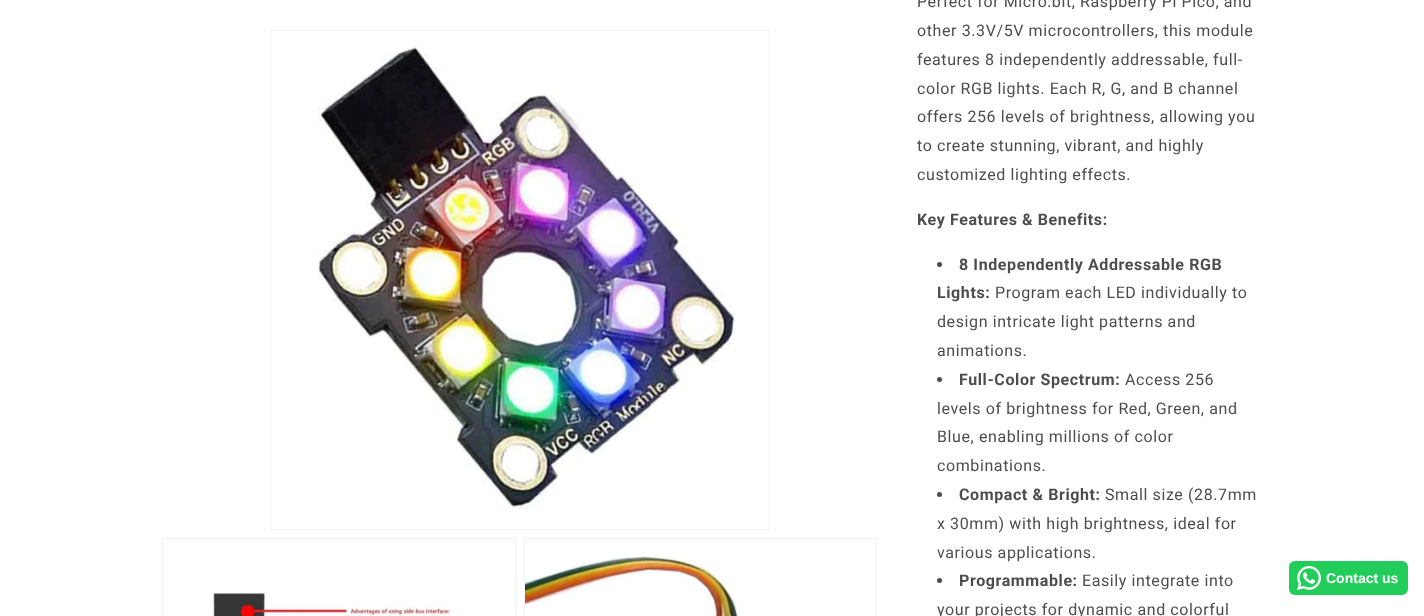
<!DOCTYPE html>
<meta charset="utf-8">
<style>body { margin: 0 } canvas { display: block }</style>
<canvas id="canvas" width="1424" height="616"></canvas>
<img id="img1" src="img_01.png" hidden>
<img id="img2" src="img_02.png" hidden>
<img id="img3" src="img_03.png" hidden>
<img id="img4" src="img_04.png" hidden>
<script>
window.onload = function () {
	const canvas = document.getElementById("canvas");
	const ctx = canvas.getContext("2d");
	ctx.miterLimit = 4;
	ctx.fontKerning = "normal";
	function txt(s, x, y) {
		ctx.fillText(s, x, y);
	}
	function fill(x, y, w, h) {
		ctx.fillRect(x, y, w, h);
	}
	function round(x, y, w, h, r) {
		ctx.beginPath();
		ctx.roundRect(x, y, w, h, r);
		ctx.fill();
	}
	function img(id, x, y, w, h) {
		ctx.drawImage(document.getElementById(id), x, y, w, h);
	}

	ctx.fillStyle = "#FFFFFF";
	fill(0, 0, 1424, 616);
	ctx.strokeStyle = "#F3F3F3";
	ctx.strokeRect(270.5, 30.5, 499, 499);
	img("img1", 316, 46, 421, 464);
	ctx.strokeRect(162.5, 538.5, 353, 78);
	img("img2", 213, 592, 238, 24);
	ctx.strokeRect(524.5, 538.5, 352, 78);
	img("img3", 525, 556, 213, 60);
	ctx.fillStyle = "#4D4D4D";
	ctx.beginPath();
	ctx.arc(939.5, 264.5, 2.5, 0, Math.PI * 2);
	ctx.fill();
	ctx.beginPath();
	ctx.arc(939.5, 379.5, 2.5, 0, Math.PI * 2);
	ctx.fill();
	ctx.beginPath();
	ctx.arc(939.5, 494.5, 2.5, 0, Math.PI * 2);
	ctx.fill();
	ctx.beginPath();
	ctx.arc(939.5, 580.5, 2.5, 0, Math.PI * 2);
	ctx.fill();
	ctx.fillStyle = "#22CD5B";
	round(1289, 561, 119, 34, 6);
	img("img4", 1297, 566, 24, 24);
	ctx.letterSpacing = "0.6px";
	ctx.font = "16px Roboto";
	ctx.fillStyle = "#4D4D4D";
	txt("Perfect for Micro:bit, Raspberry Pi Pico, and", 917, 7);
	txt("other 3.3V/5V microcontrollers, this module", 917, 36);
	txt("features 8 independently addressable, full-", 917, 65);
	txt("color RGB lights. Each R, G, and B channel", 917, 94);
	txt("offers 256 levels of brightness, allowing you", 917, 122);
	txt("to create stunning, vibrant, and highly", 917, 151);
	txt("customized lighting effects.", 917, 180);
	ctx.font = "bold 16px Roboto";
	txt("Key Features & Benefits:", 917, 225);
	txt("8 Independently Addressable RGB", 959, 270);
	txt("Lights:", 937, 298);
	ctx.font = "16px Roboto";
	txt("Program each LED individually to", 995, 298);
	txt("design intricate light patterns and", 937, 327);
	txt("animations.", 937, 356);
	ctx.font = "bold 16px Roboto";
	txt("Full-Color Spectrum:", 959, 385);
	ctx.font = "16px Roboto";
	txt("Access 256", 1125, 385);
	txt("levels of brightness for Red, Green, and", 937, 414);
	txt("Blue, enabling millions of color", 937, 442);
	txt("combinations.", 937, 471);
	ctx.font = "bold 16px Roboto";
	txt("Compact & Bright:", 959, 500);
	ctx.font = "16px Roboto";
	txt("Small size (28.7mm", 1105, 500);
	txt("x 30mm) with high brightness, ideal for", 937, 529);
	txt("various applications.", 937, 558);
	ctx.font = "bold 16px Roboto";
	txt("Programmable:", 959, 586);
	ctx.font = "16px Roboto";
	txt("Easily integrate into", 1082, 586);
	txt("your projects for dynamic and colorful", 937, 615);
	ctx.letterSpacing = "0px";
	ctx.font = "bold 14px Liberation Sans";
	ctx.fillStyle = "#FFFFFF";
	txt("Contact us", 1326, 583);
};
</script>
